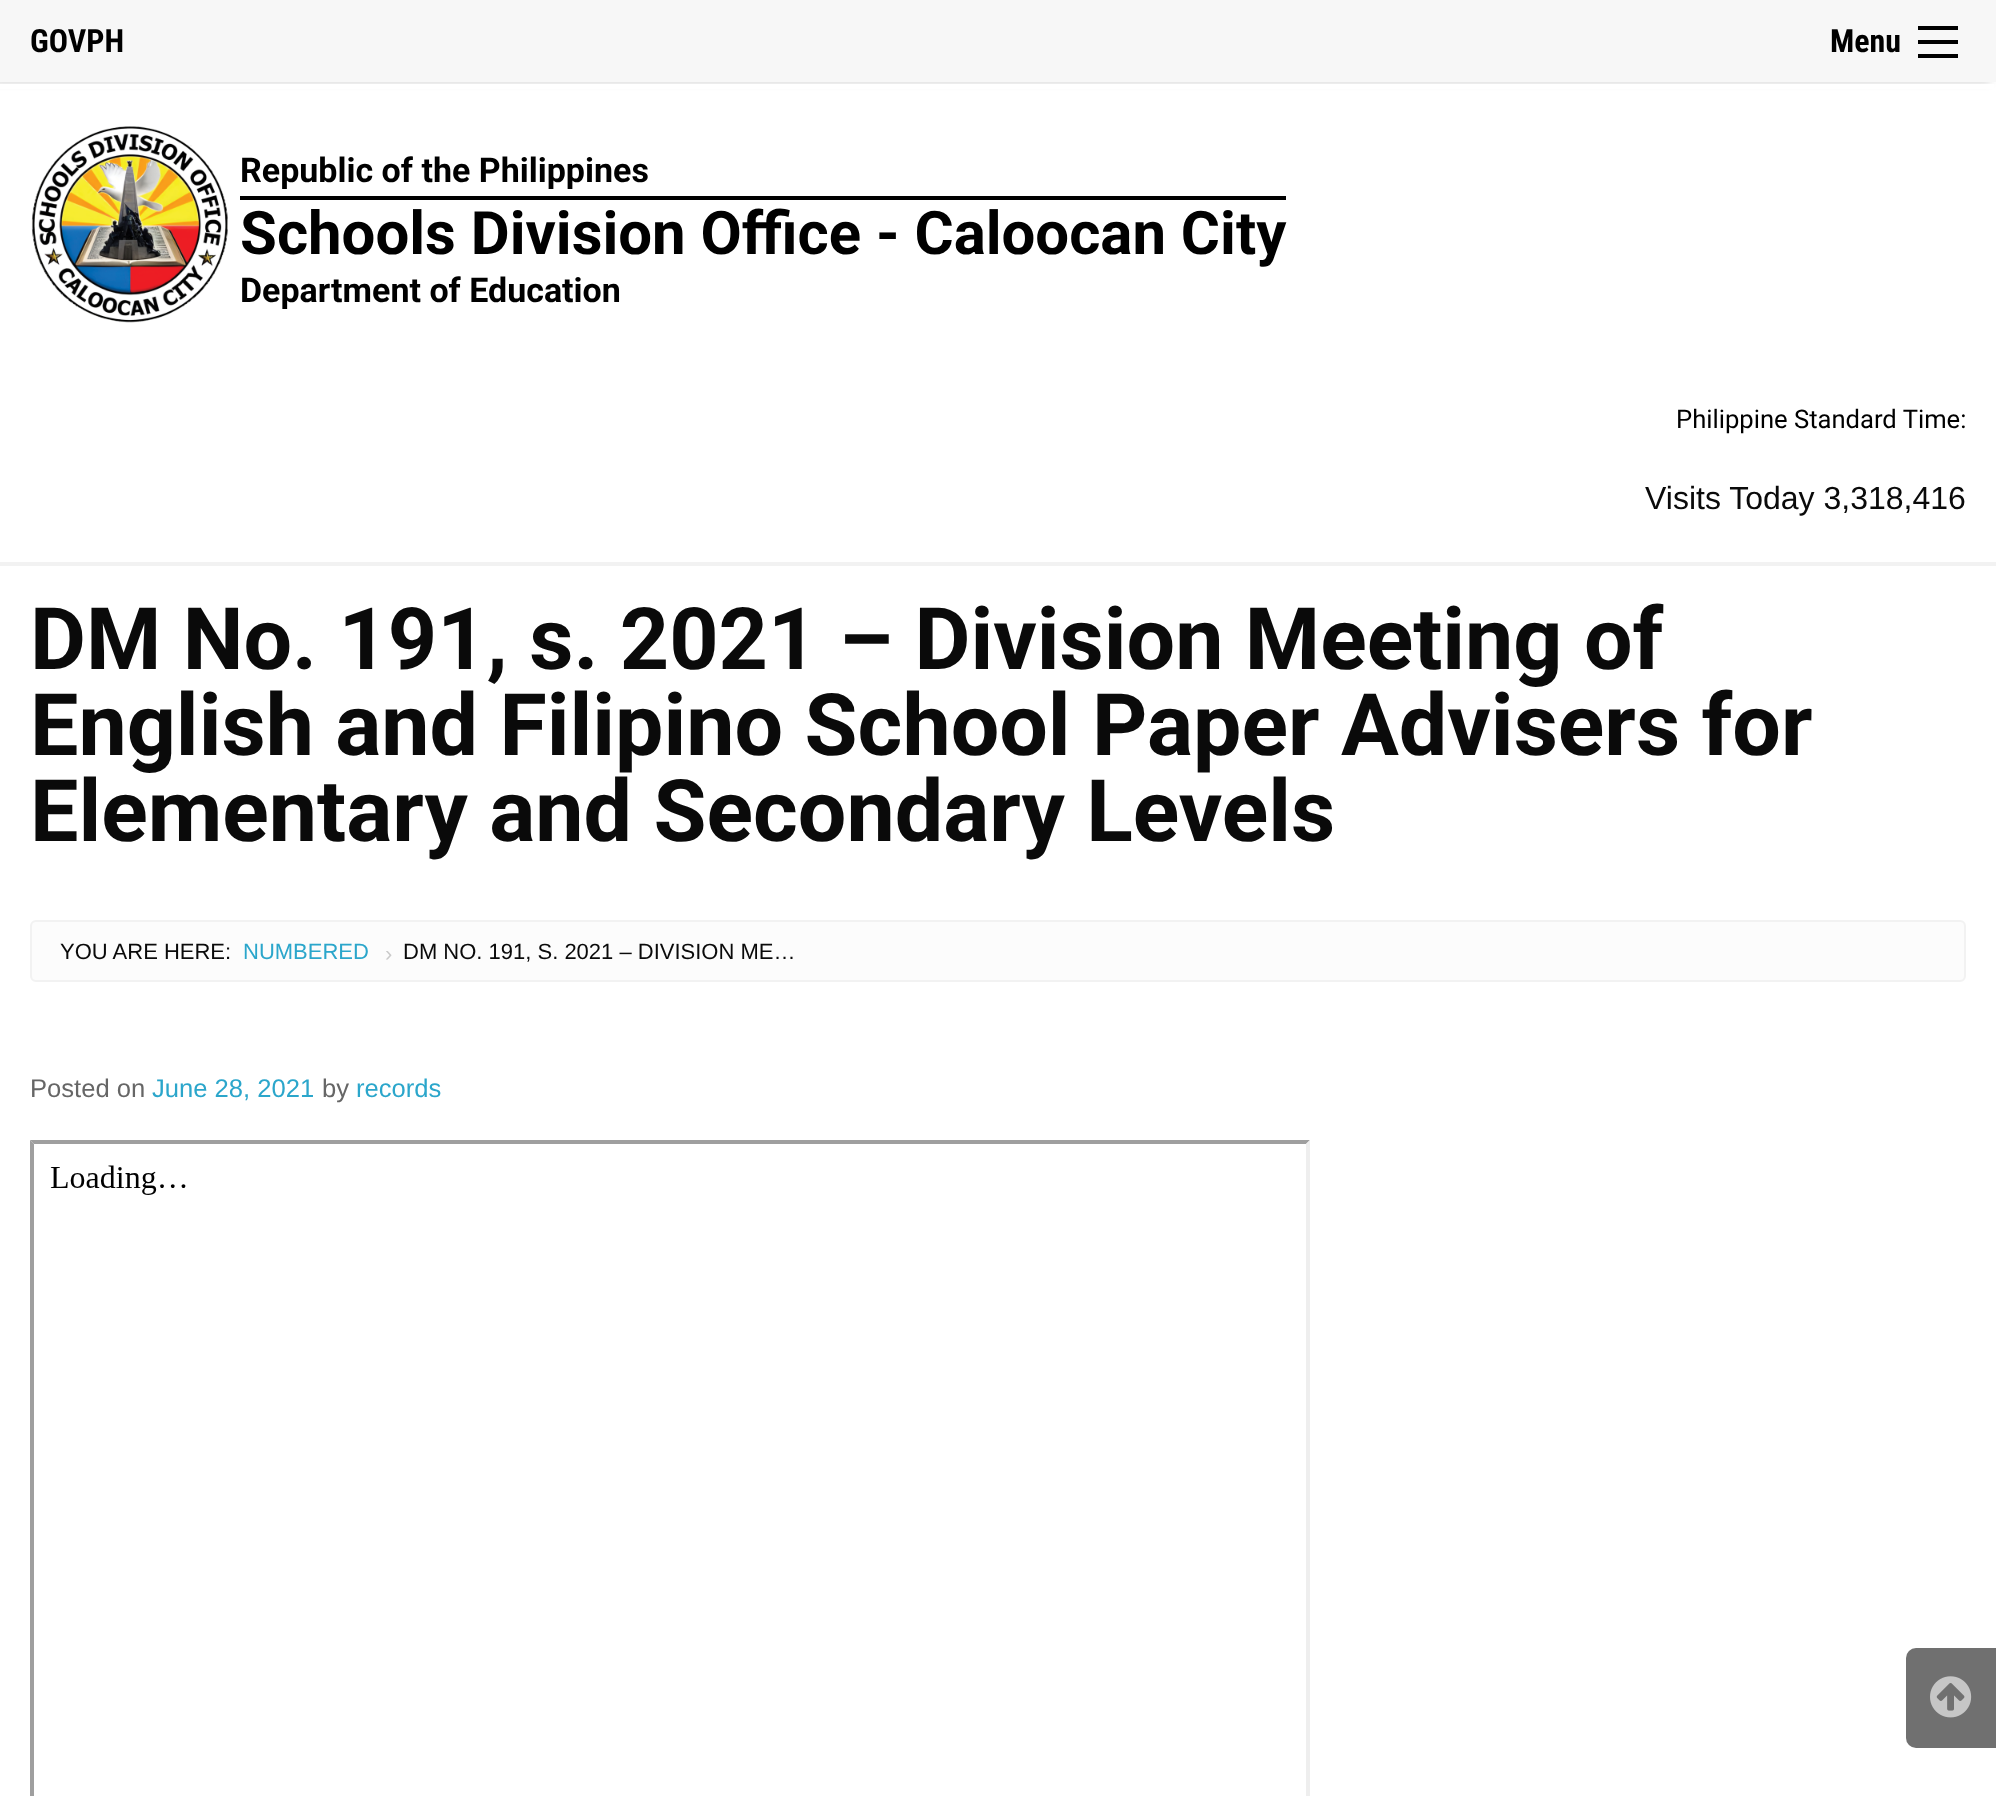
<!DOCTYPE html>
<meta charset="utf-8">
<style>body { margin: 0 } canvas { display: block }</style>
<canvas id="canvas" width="1996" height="1796"></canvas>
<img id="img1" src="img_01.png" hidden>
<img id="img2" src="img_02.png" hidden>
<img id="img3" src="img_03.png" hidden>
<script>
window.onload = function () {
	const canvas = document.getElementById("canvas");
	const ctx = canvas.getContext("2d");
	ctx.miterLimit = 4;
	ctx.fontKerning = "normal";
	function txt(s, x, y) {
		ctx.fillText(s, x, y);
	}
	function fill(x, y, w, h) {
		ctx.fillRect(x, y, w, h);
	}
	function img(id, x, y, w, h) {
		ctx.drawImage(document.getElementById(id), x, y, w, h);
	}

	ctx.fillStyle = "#FFFFFF";
	fill(0, 0, 1996, 1796);
	ctx.fillStyle = "rgba(0, 0, 0, 0.2)";
	ctx.filter = "blur(4px)";
	ctx.beginPath();
	ctx.rect(-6, 0, 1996, 82);
	ctx.fill();
	ctx.filter = "none";
	ctx.fillStyle = "#F7F7F7";
	fill(0, 0, 1996, 82);
	ctx.fillStyle = "#000000";
	fill(1918, 54, 40, 4);
	fill(1918, 40, 40, 4);
	fill(1918, 26, 40, 4);
	ctx.fillStyle = "#FFFFFF";
	fill(0, 84, 1994, 5);
	ctx.fillStyle = "#F2F2F2";
	fill(0, 562, 1996, 4);
	img("img1", 31, 126, 197, 197);
	ctx.fillStyle = "#000000";
	fill(240, 196, 1046, 4);
	ctx.fillStyle = "#FCFCFC";
	ctx.beginPath();
	ctx.roundRect(31, 921, 1934, 60, 5);
	ctx.fill();
	ctx.strokeStyle = "#F2F2F2";
	ctx.lineWidth = 2;
	ctx.stroke();
	ctx.fillStyle = "#9F9F9F";
	ctx.beginPath();
	ctx.moveTo(30, 1140);
	ctx.lineTo(1310, 1140);
	ctx.lineTo(1306, 1144);
	ctx.lineTo(34, 1144);
	ctx.closePath();
	ctx.fill();
	ctx.beginPath();
	ctx.moveTo(30, 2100);
	ctx.lineTo(30, 1140);
	ctx.lineTo(34, 1144);
	ctx.lineTo(34, 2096);
	ctx.closePath();
	ctx.fill();
	img("img2", 50, 1165, 136, 30);
	ctx.fillStyle = "#EEEEEE";
	ctx.beginPath();
	ctx.moveTo(1310, 1140);
	ctx.lineTo(1310, 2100);
	ctx.lineTo(1306, 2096);
	ctx.lineTo(1306, 1144);
	ctx.closePath();
	ctx.fill();
	ctx.fillStyle = "#707070";
	ctx.beginPath();
	ctx.roundRect(1906, 1648, 90, 100, [10, 0, 0, 10]);
	ctx.fill();
	img("img3", 1930, 1676, 42, 42);
	ctx.font = "bold 32px Roboto Condensed";
	ctx.fillStyle = "#000000";
	txt("GOVPH", 30, 52);
	txt("Menu", 1830, 52);
	ctx.font = "bold 34px Roboto";
	txt("Republic of the Philippines", 240, 182);
	ctx.font = "bold 59.9px Roboto";
	txt("Schools Division Office - Caloocan City", 240, 254);
	ctx.font = "bold 34px Roboto";
	txt("Department of Education", 240, 302);
	ctx.font = "25.6px Roboto";
	txt("Philippine Standard Time:", 1676, 428);
	ctx.font = "32px Liberation Sans";
	ctx.fillStyle = "#0A0A0A";
	txt("Visits Today 3,318,416", 1645, 509);
	ctx.font = "bold 86.1px Roboto";
	txt("DM No. 191, s. 2021 – Division Meeting of", 30, 669);
	txt("English and Filipino School Paper Advisers for", 30, 755);
	txt("Elementary and Secondary Levels", 30, 841);
	ctx.font = "22px Liberation Sans";
	txt("YOU ARE HERE:", 60, 959);
	ctx.fillStyle = "#2BA6CB";
	txt("NUMBERED", 243, 959);
	ctx.fillStyle = "#CACACA";
	txt("›", 385, 961);
	ctx.fillStyle = "#0A0A0A";
	txt("DM NO. 191, S. 2021 – DIVISION ME…", 403, 959);
	ctx.font = "25.6px Liberation Sans";
	ctx.fillStyle = "#666666";
	txt("Posted on", 30, 1097);
	ctx.fillStyle = "#2BA6CB";
	txt("June 28, 2021", 152, 1097);
	ctx.fillStyle = "#666666";
	txt("by", 322, 1097);
	ctx.fillStyle = "#2BA6CB";
	txt("records", 356, 1097);
};
</script>
